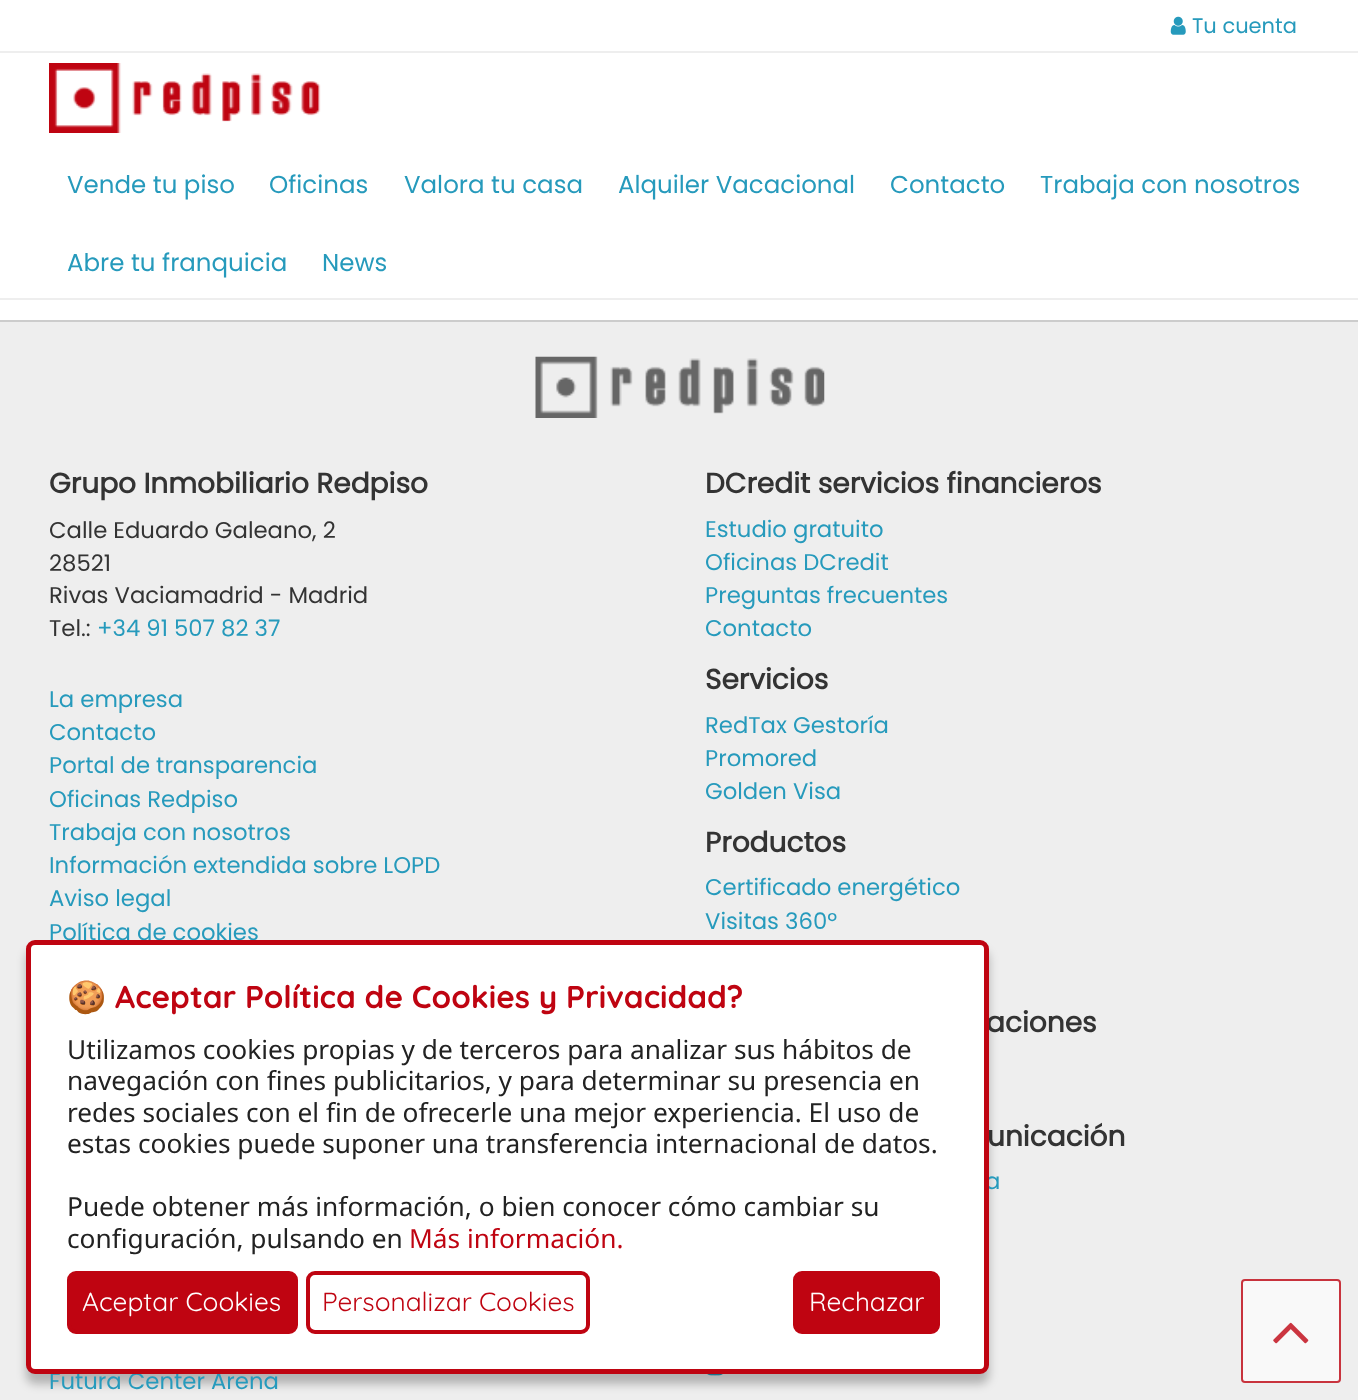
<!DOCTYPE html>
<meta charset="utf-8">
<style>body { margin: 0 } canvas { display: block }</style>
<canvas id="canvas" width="1358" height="1400"></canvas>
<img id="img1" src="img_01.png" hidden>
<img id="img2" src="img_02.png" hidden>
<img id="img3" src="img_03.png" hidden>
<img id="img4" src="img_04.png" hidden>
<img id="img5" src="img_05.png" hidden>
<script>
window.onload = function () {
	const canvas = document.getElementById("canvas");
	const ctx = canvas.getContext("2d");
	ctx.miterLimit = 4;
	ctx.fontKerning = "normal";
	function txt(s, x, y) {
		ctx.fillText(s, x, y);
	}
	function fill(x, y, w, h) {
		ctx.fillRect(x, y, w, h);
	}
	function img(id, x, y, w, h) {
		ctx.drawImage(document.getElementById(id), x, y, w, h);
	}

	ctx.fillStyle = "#FFFFFF";
	fill(0, 0, 1358, 1400);
	ctx.fillStyle = "#EEEEEE";
	fill(0, 51, 1358, 2);
	img("img1", 1170, 16, 16, 19);
	fill(0, 298, 1358, 2);
	img("img2", 49, 63, 272, 70);
	fill(0, 322, 1358, 1078);
	ctx.fillStyle = "#CCCCCC";
	fill(0, 320, 1358, 2);
	img("img3", 535, 356, 290, 62);
	img("img4", 707, 1374, 16, 2);
	ctx.fillStyle = "rgba(0, 0, 0, 0.25)";
	ctx.filter = "blur(5px)";
	ctx.beginPath();
	ctx.roundRect(26, 950, 963, 434, 9);
	ctx.fill();
	ctx.filter = "none";
	ctx.fillStyle = "#F9F9F9";
	ctx.beginPath();
	ctx.roundRect(1242, 1280, 98, 102, 3);
	ctx.fill();
	ctx.strokeStyle = "#C8333D";
	ctx.lineWidth = 2;
	ctx.stroke();
	img("img5", 1273, 1322, 36, 22);
	ctx.font = "21px Poppins";
	ctx.fillStyle = "#269ABC";
	txt("Tu cuenta", 1192, 33);
	ctx.font = "24.5px Poppins";
	txt("Vende tu piso", 67, 193);
	txt("Oficinas", 269, 193);
	txt("Valora tu casa", 404, 193);
	txt("Alquiler Vacacional", 618, 193);
	txt("Contacto", 890, 193);
	txt("Trabaja con nosotros", 1040, 193);
	txt("Abre tu franquicia", 67, 271);
	txt("News", 322, 271);
	ctx.font = "bold 28px Poppins";
	ctx.fillStyle = "#333333";
	txt("Grupo Inmobiliario Redpiso", 49, 493);
	ctx.font = "22.75px Poppins";
	txt("Calle Eduardo Galeano, 2", 49, 538);
	txt("28521", 49, 571);
	txt("Rivas Vaciamadrid - Madrid", 49, 603);
	txt("Tel.:", 49, 636);
	ctx.fillStyle = "#269ABC";
	txt("+34 91 507 82 37", 97, 636);
	txt("La empresa", 49, 707);
	txt("Contacto", 49, 740);
	txt("Portal de transparencia", 49, 773);
	txt("Oficinas Redpiso", 49, 807);
	txt("Trabaja con nosotros", 49, 840);
	txt("Información extendida sobre LOPD", 49, 873);
	txt("Aviso legal", 49, 906);
	txt("Política de cookies", 49, 940);
	ctx.font = "bold 28px Poppins";
	ctx.fillStyle = "#333333";
	txt("DCredit servicios financieros", 705, 493);
	ctx.font = "22.75px Poppins";
	ctx.fillStyle = "#269ABC";
	txt("Estudio gratuito", 705, 537);
	txt("Oficinas DCredit", 705, 570);
	txt("Preguntas frecuentes", 705, 603);
	txt("Contacto", 705, 636);
	ctx.font = "bold 28px Poppins";
	ctx.fillStyle = "#333333";
	txt("Servicios", 705, 689);
	ctx.font = "22.75px Poppins";
	ctx.fillStyle = "#269ABC";
	txt("RedTax Gestoría", 705, 733);
	txt("Promored", 705, 766);
	txt("Golden Visa", 705, 799);
	ctx.font = "bold 28px Poppins";
	ctx.fillStyle = "#333333";
	txt("Productos", 705, 852);
	ctx.font = "22.75px Poppins";
	ctx.fillStyle = "#269ABC";
	txt("Certificado energético", 705, 895);
	txt("Visitas 360º", 705, 929);
	ctx.font = "bold 28px Poppins";
	ctx.fillStyle = "#333333";
	txt("aciones", 986, 1032);
	txt("unicación", 987, 1146);
	ctx.font = "22.75px Poppins";
	ctx.fillStyle = "#269ABC";
	txt("a", 985, 1189);
	txt("Futura Center Arena", 49, 1389);
	ctx.fillStyle = "#FFFFFF";
	ctx.beginPath();
	ctx.roundRect(28.5, 942.5, 958, 429, 6.5);
	ctx.fill();
	ctx.strokeStyle = "#BF0411";
	ctx.lineWidth = 5;
	ctx.stroke();
	ctx.font = "bold 31.5px Noto Color Emoji";
	ctx.fillStyle = "#BF0411";
	txt("🍪", 67, 1008);
	ctx.font = "bold 31.5px Quicksand";
	txt("Aceptar Política de Cookies y Privacidad?", 115, 1008);
	ctx.font = "26.25px Noto Sans";
	ctx.fillStyle = "#222222";
	txt("Utilizamos cookies propias y de terceros para analizar sus hábitos de", 67, 1059);
	txt("navegación con fines publicitarios, y para determinar su presencia en", 67, 1090);
	txt("redes sociales con el fin de ofrecerle una mejor experiencia. El uso de", 67, 1122);
	txt("estas cookies puede suponer una transferencia internacional de datos.", 67, 1153);
	txt("Puede obtener más información, o bien conocer cómo cambiar su", 67, 1216);
	txt("configuración, pulsando en", 67, 1248);
	ctx.fillStyle = "#BF0411";
	txt("Más información.", 409, 1248);
	ctx.beginPath();
	ctx.roundRect(69, 1273, 227, 59, 7);
	ctx.fill();
	ctx.lineWidth = 4;
	ctx.stroke();
	ctx.font = "26.25px Quicksand";
	ctx.fillStyle = "#FFFFFF";
	txt("Aceptar Cookies", 82, 1311);
	ctx.beginPath();
	ctx.roundRect(308, 1273, 280, 59, 7);
	ctx.stroke();
	ctx.fillStyle = "#BF0411";
	txt("Personalizar Cookies", 322, 1311);
	ctx.beginPath();
	ctx.roundRect(795, 1273, 143, 59, 7);
	ctx.fill();
	ctx.stroke();
	ctx.fillStyle = "#FFFFFF";
	txt("Rechazar", 809, 1311);
};
</script>
